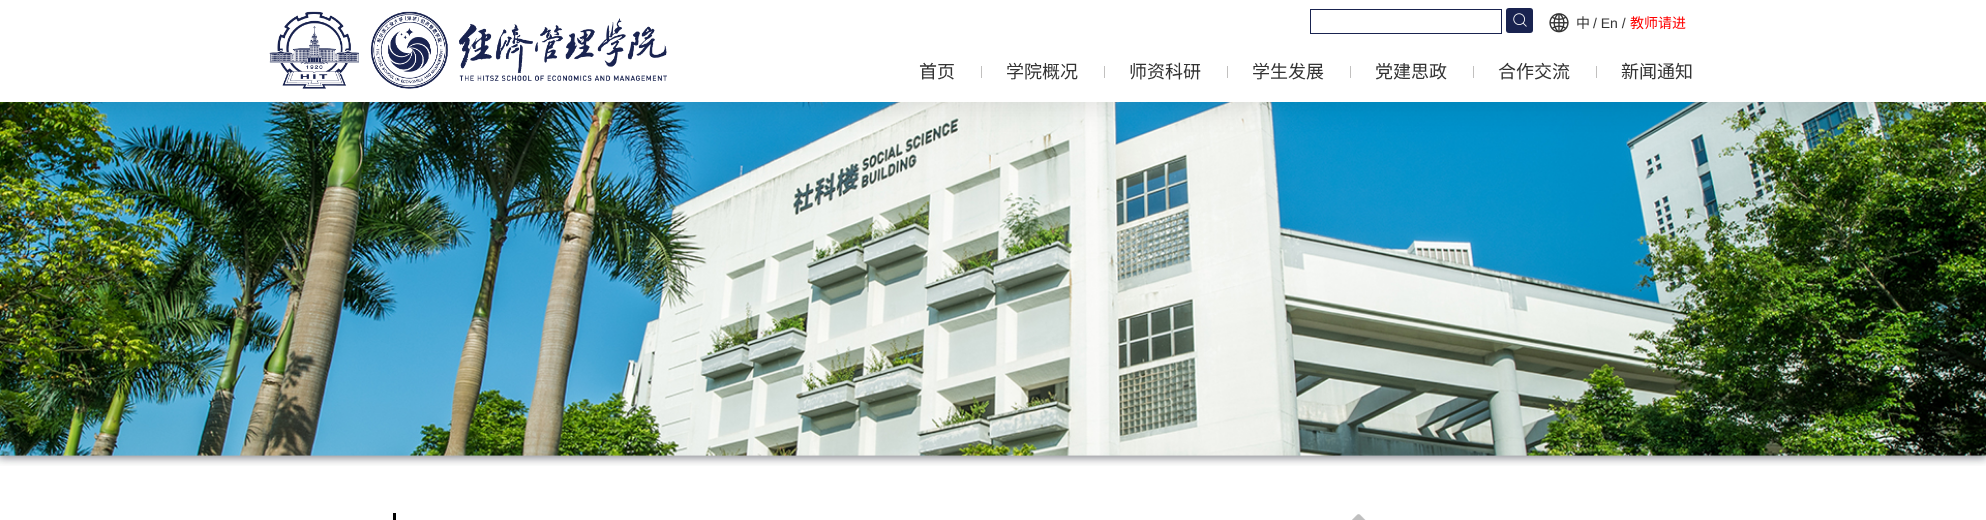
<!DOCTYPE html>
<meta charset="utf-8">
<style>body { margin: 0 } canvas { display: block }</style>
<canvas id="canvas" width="1986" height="520"></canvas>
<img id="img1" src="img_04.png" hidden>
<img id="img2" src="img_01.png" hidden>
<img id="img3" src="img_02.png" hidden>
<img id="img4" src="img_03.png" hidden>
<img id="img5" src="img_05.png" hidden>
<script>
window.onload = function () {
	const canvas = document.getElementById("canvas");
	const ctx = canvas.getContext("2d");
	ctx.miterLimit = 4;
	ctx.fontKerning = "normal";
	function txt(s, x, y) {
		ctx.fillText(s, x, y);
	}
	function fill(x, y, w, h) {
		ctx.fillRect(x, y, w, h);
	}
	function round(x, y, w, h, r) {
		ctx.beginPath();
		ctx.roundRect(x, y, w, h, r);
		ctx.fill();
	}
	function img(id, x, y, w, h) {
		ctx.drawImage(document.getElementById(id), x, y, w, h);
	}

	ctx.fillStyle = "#FFFFFF";
	fill(0, 0, 1986, 520);
	img("img1", 0, 102, 1986, 364);
	ctx.fillStyle = "rgba(0, 0, 0, 0.11)";
	ctx.filter = "blur(15px)";
	ctx.beginPath();
	ctx.rect(0, 1, 1986, 102);
	ctx.fill();
	ctx.filter = "none";
	ctx.fillStyle = "#FFFFFF";
	fill(0, 0, 1986, 102);
	img("img2", 269, 11, 398, 78);
	ctx.strokeStyle = "#192350";
	ctx.strokeRect(1310.5, 9.5, 191, 24);
	ctx.fillStyle = "#192350";
	round(1506, 8, 27, 25, 3);
	img("img3", 1513, 13, 14, 14);
	img("img4", 1549, 13, 20, 20);
	ctx.fillStyle = "#C1C0BF";
	fill(981, 66, 1, 12);
	fill(1104, 66, 1, 12);
	fill(1227, 66, 1, 12);
	fill(1350, 66, 1, 12);
	fill(1473, 66, 1, 12);
	fill(1596, 66, 1, 12);
	ctx.fillStyle = "#000000";
	fill(393, 513, 3, 7);
	img("img5", 1352, 514, 14, 6);
	ctx.font = "14px Noto Sans CJK SC";
	ctx.fillStyle = "#333333";
	txt("中", 1576, 28);
	ctx.font = "14px Liberation Sans";
	txt("/ En /", 1593, 28);
	ctx.font = "14px Noto Sans CJK SC";
	ctx.fillStyle = "#FF0000";
	txt("教师请进", 1630, 28);
	ctx.font = "18px Noto Sans CJK SC";
	ctx.fillStyle = "#333333";
	txt("首页", 919, 78);
	txt("学院概况", 1006, 78);
	txt("师资科研", 1129, 78);
	txt("学生发展", 1252, 78);
	txt("党建思政", 1375, 78);
	txt("合作交流", 1498, 78);
	txt("新闻通知", 1621, 78);
};
</script>
